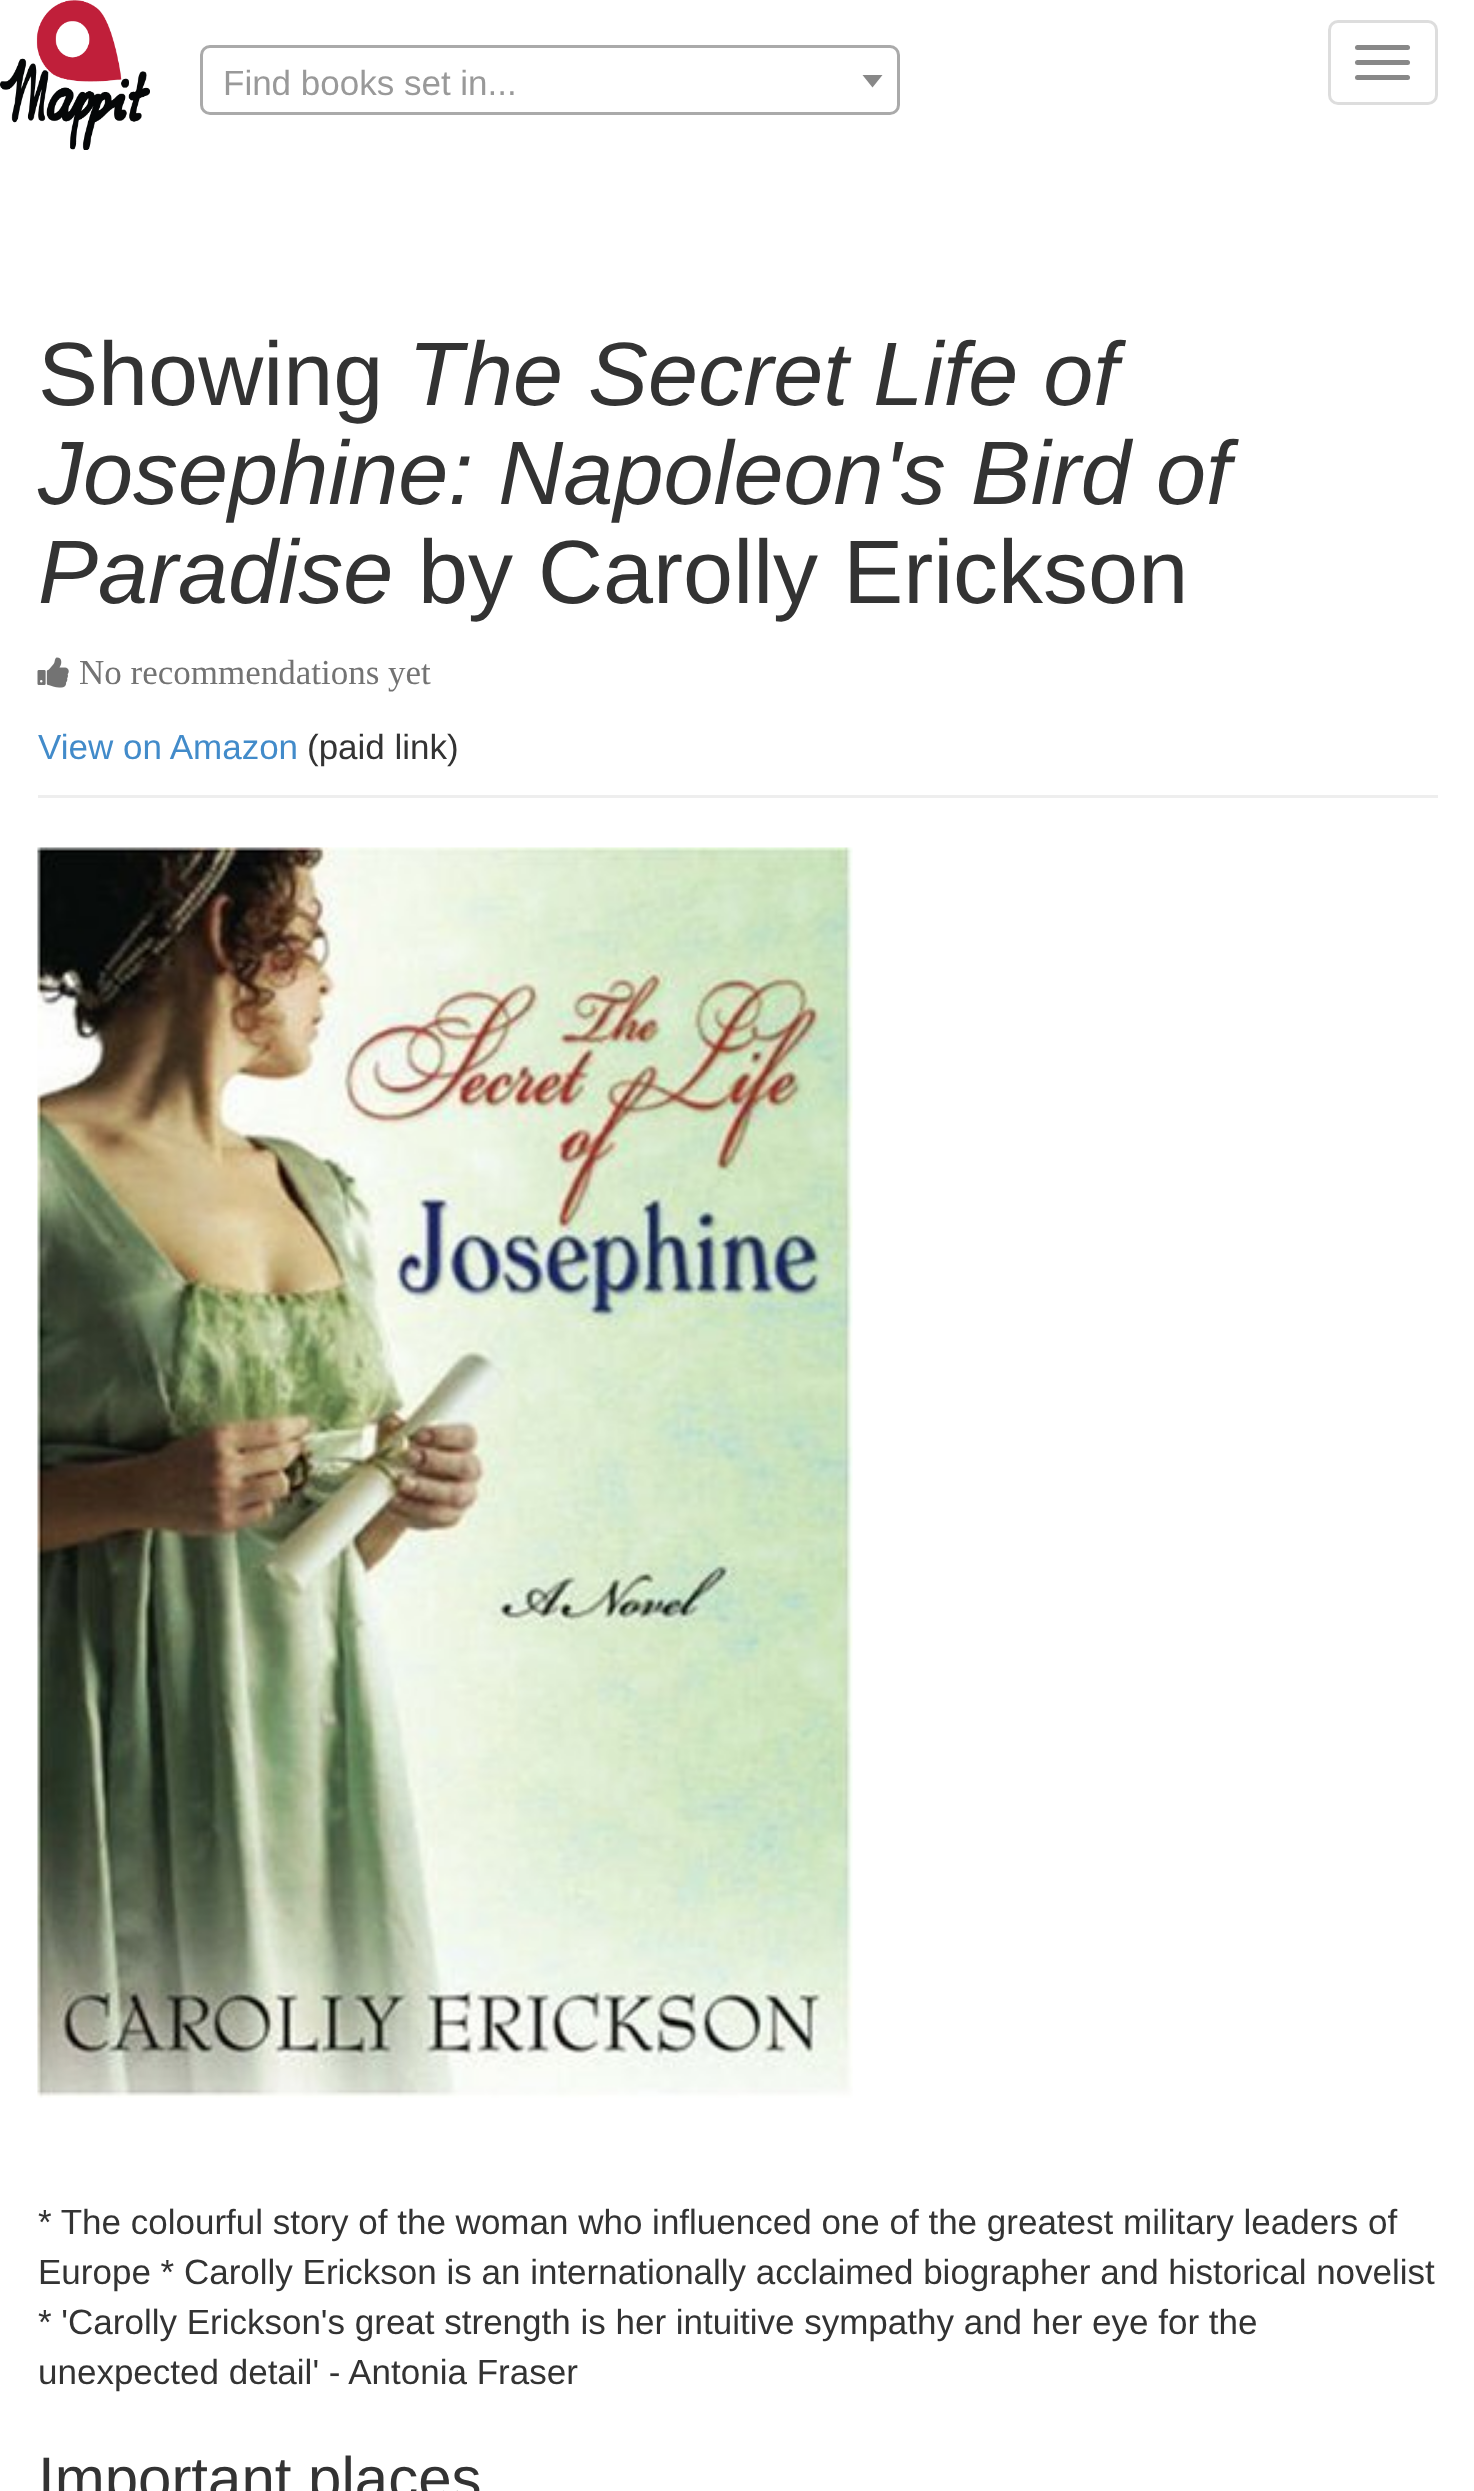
<!DOCTYPE html>
<meta charset="utf-8">
<style>body { margin: 0 } canvas { display: block }</style>
<canvas id="canvas" width="1474" height="2491"></canvas>
<img id="img1" src="img_01.png" hidden>
<img id="img2" src="img_02.png" hidden>
<img id="img3" src="img_03.png" hidden>
<script>
window.onload = function () {
	const canvas = document.getElementById("canvas");
	const ctx = canvas.getContext("2d");
	ctx.miterLimit = 4;
	ctx.fontKerning = "normal";
	function txt(s, x, y) {
		ctx.fillText(s, x, y);
	}
	function fill(x, y, w, h) {
		ctx.fillRect(x, y, w, h);
	}
	function round(x, y, w, h, r) {
		ctx.beginPath();
		ctx.roundRect(x, y, w, h, r);
		ctx.fill();
	}
	function img(id, x, y, w, h) {
		ctx.drawImage(document.getElementById(id), x, y, w, h);
	}

	ctx.fillStyle = "#FFFFFF";
	fill(0, 0, 1474, 2491);
	img("img1", 0, 0, 150, 150);
	ctx.beginPath();
	ctx.roundRect(201.5, 46.5, 697, 67, 8.5);
	ctx.strokeStyle = "#AAAAAA";
	ctx.lineWidth = 3;
	ctx.stroke();
	ctx.fillStyle = "#888888";
	ctx.beginPath();
	ctx.moveTo(862.5, 75);
	ctx.lineTo(882.5, 75);
	ctx.lineTo(872.5, 87.5);
	ctx.closePath();
	ctx.fill();
	ctx.beginPath();
	ctx.roundRect(1329.5, 21.5, 107, 82, 8.5);
	ctx.strokeStyle = "#DDDDDD";
	ctx.stroke();
	round(1355, 45, 55, 5, 2.5);
	round(1355, 60, 55, 5, 2.5);
	round(1355, 75, 55, 5, 2.5);
	ctx.fillStyle = "#EEEEEE";
	fill(38, 795, 1400, 3);
	img("img2", 37, 657, 32, 31);
	img("img3", 37, 847, 816, 1251);
	ctx.font = "35px Liberation Sans";
	ctx.fillStyle = "#999999";
	txt("Find books set in...", 223, 95);
	ctx.font = "90px Liberation Sans";
	ctx.fillStyle = "#333333";
	txt("Showing", 38, 405);
	ctx.font = "italic 90px Liberation Sans";
	txt("The Secret Life of", 408, 405);
	txt("Josephine: Napoleon's Bird of", 38, 504);
	txt("Paradise", 38, 603);
	ctx.font = "90px Liberation Sans";
	txt("by Carolly Erickson", 418, 603);
	ctx.font = "35px Liberation Serif";
	ctx.fillStyle = "#737373";
	txt("No recommendations yet", 79, 684);
	ctx.font = "35px Liberation Sans";
	ctx.fillStyle = "#428BCA";
	txt("View on Amazon", 38, 759);
	ctx.fillStyle = "#333333";
	txt("(paid link)", 307, 759);
	txt("* The colourful story of the woman who influenced one of the greatest military leaders of", 38, 2234);
	txt("Europe * Carolly Erickson is an internationally acclaimed biographer and historical novelist", 38, 2284);
	txt("* 'Carolly Erickson's great strength is her intuitive sympathy and her eye for the", 38, 2334);
	txt("unexpected detail' - Antonia Fraser", 38, 2384);
	ctx.font = "60px Liberation Sans";
	txt("Important places", 38, 2499);
};
</script>
